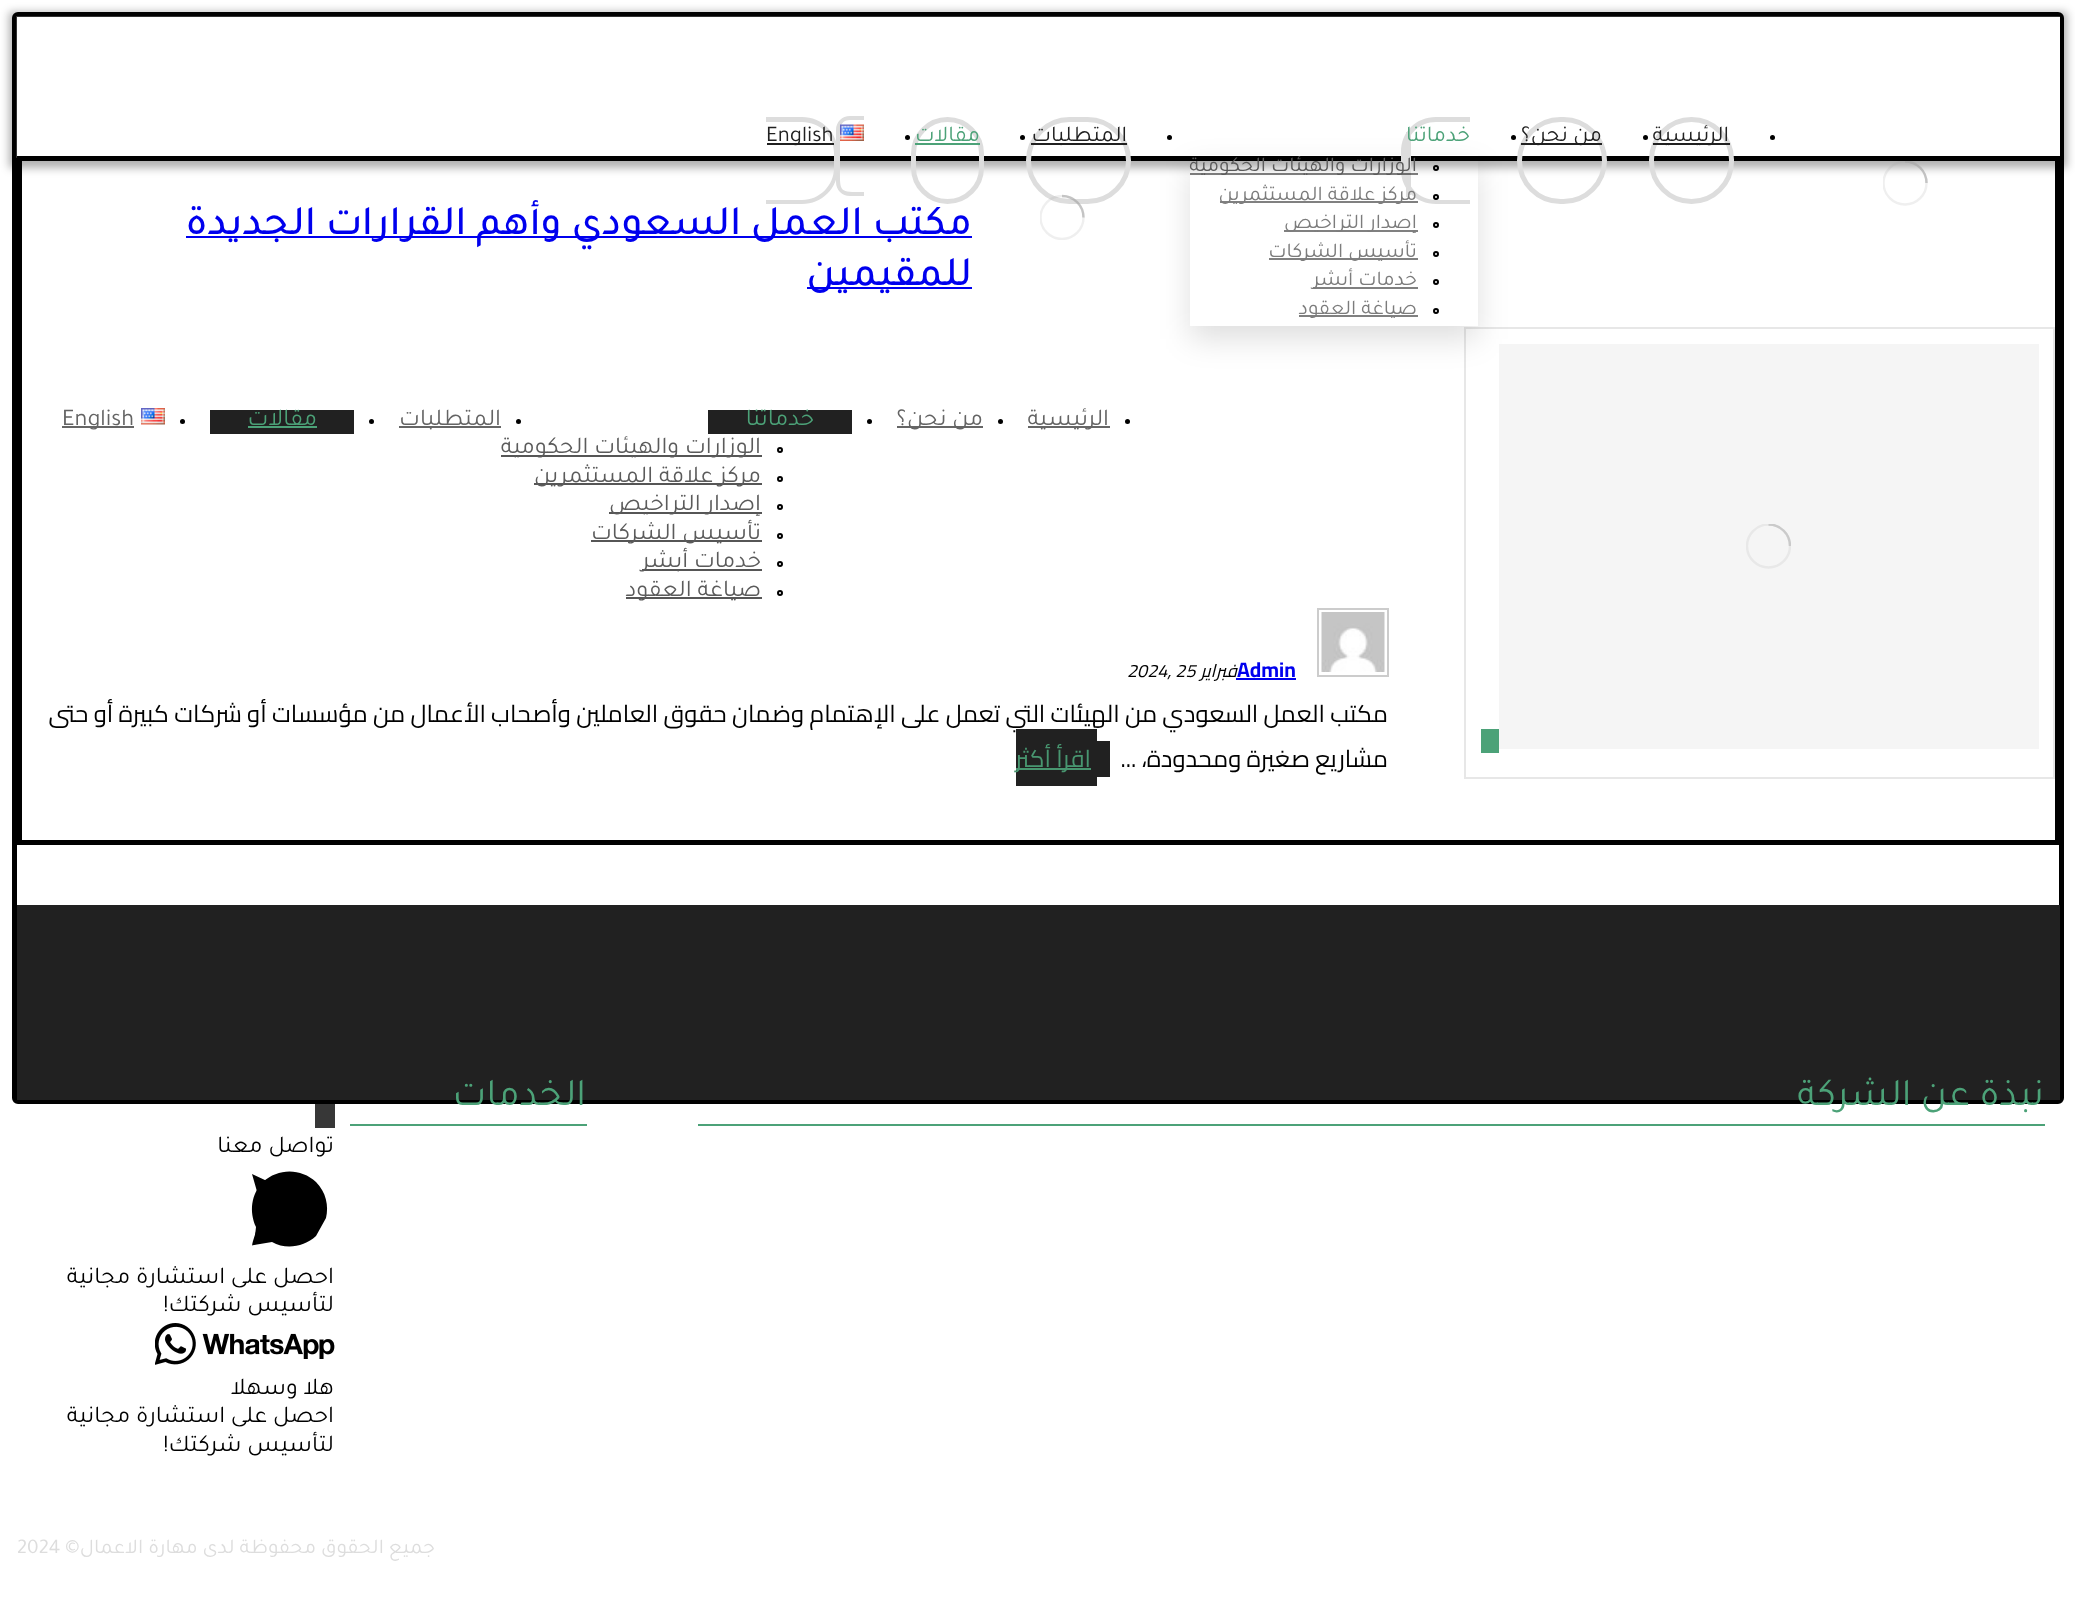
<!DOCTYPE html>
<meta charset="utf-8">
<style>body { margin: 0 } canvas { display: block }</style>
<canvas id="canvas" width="2075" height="1601"></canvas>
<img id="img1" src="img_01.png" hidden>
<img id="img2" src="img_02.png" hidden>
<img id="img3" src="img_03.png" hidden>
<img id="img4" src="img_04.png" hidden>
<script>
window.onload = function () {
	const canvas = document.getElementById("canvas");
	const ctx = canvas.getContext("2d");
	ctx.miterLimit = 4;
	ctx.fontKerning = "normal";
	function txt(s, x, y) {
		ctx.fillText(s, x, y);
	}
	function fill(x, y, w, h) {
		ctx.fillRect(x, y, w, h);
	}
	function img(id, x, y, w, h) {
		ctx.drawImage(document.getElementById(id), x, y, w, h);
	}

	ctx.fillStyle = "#FFFFFF";
	fill(0, 0, 2075, 1601);
	ctx.beginPath();
	ctx.roundRect(14.5, 14.5, 2047, 1087, 3.5);
	ctx.strokeStyle = "#000000";
	ctx.lineWidth = 5;
	ctx.stroke();
	ctx.fillStyle = "rgba(0, 0, 0, 0.31)";
	ctx.filter = "blur(4px)";
	ctx.beginPath();
	ctx.rect(9, 12, 2058, 156);
	ctx.fill();
	ctx.filter = "none";
	ctx.fillStyle = "#FFFFFF";
	fill(17, 17, 2043, 139);
	ctx.fillStyle = "rgba(255, 255, 255, 0.2)";
	ctx.beginPath();
	ctx.moveTo(16, 16);
	ctx.lineTo(2060, 16);
	ctx.lineTo(2055, 21);
	ctx.lineTo(21, 21);
	ctx.closePath();
	ctx.fill();
	ctx.beginPath();
	ctx.moveTo(2060, 16);
	ctx.lineTo(2060, 158);
	ctx.lineTo(2055, 156);
	ctx.lineTo(2055, 21);
	ctx.closePath();
	ctx.fill();
	ctx.beginPath();
	ctx.moveTo(16, 158);
	ctx.lineTo(16, 16);
	ctx.lineTo(21, 21);
	ctx.lineTo(21, 156);
	ctx.closePath();
	ctx.fill();
	ctx.strokeRect(19.5, 158.5, 2038, 684);
	ctx.save();
	ctx.beginPath();
	ctx.rect(1883, 161, 45, 45);
	ctx.clip();
	ctx.beginPath();
	ctx.arc(1905, 183, 21.5, 0, Math.PI * 2);
	ctx.strokeStyle = "rgba(167, 167, 167, 0.18)";
	ctx.lineWidth = 2.4;
	ctx.stroke();
	ctx.beginPath();
	ctx.moveTo(1926.5, 183);
	ctx.bezierCurveTo(1926.5, 171, 1917, 161.5, 1905, 161.5);
	ctx.strokeStyle = "rgba(167, 167, 167, 0.6)";
	ctx.stroke();
	ctx.restore();
	ctx.fillStyle = "#000000";
	ctx.beginPath();
	ctx.arc(1772.5, 137.5, 2.5, 0, Math.PI * 2);
	ctx.fill();
	ctx.beginPath();
	ctx.roundRect(1651.5, 119.5, 80, 82, 40);
	ctx.strokeStyle = "#DDDDDD";
	ctx.stroke();
	ctx.fillStyle = "#212121";
	fill(1653, 143, 77, 2);
	ctx.fillStyle = "#000000";
	ctx.beginPath();
	ctx.arc(1645.5, 137.5, 2.5, 0, Math.PI * 2);
	ctx.fill();
	ctx.beginPath();
	ctx.roundRect(1519.5, 119.5, 85, 82, 41);
	ctx.stroke();
	ctx.fillStyle = "#212121";
	fill(1521, 143, 81, 2);
	ctx.save();
	ctx.beginPath();
	ctx.moveTo(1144, 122);
	ctx.lineTo(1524, 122);
	ctx.lineTo(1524, 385);
	ctx.lineTo(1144, 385);
	ctx.closePath();
	ctx.moveTo(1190, 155);
	ctx.lineTo(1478, 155);
	ctx.lineTo(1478, 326);
	ctx.lineTo(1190, 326);
	ctx.closePath();
	ctx.clip("evenodd");
	ctx.fillStyle = "rgba(0, 0, 0, 0.13)";
	ctx.filter = "blur(15px)";
	ctx.beginPath();
	ctx.rect(1190, 168, 288, 171);
	ctx.fill();
	ctx.filter = "none";
	ctx.restore();
	ctx.fillStyle = "#000000";
	ctx.beginPath();
	ctx.arc(1513.5, 137.5, 2.5, 0, Math.PI * 2);
	ctx.fill();
	ctx.fillStyle = "#DDDDDD";
	ctx.beginPath();
	ctx.moveTo(1436, 117);
	ctx.lineTo(1470, 117);
	ctx.lineTo(1470, 204);
	ctx.lineTo(1436, 204);
	ctx.bezierCurveTo(1416, 204, 1401, 189, 1401, 170);
	ctx.lineTo(1401, 152);
	ctx.bezierCurveTo(1401, 132, 1416, 117, 1436, 117);
	ctx.closePath();
	ctx.moveTo(1436, 122);
	ctx.lineTo(1470, 122);
	ctx.lineTo(1470, 200);
	ctx.lineTo(1436, 200);
	ctx.bezierCurveTo(1419, 200, 1406, 186, 1406, 170);
	ctx.lineTo(1406, 152);
	ctx.bezierCurveTo(1406, 135, 1419, 122, 1436, 122);
	ctx.closePath();
	ctx.fill("evenodd");
	fill(1406, 132, 1, 5);
	fill(1406, 134, 5, 61);
	fill(1406, 192, 3, 5);
	ctx.beginPath();
	ctx.arc(1436, 168, 2, 0, Math.PI * 2);
	ctx.strokeStyle = "#000000";
	ctx.lineWidth = 2;
	ctx.stroke();
	ctx.fillStyle = "rgba(0, 0, 0, 0.5)";
	fill(1190, 173, 228, 2);
	ctx.beginPath();
	ctx.arc(1436, 197, 2, 0, Math.PI * 2);
	ctx.stroke();
	ctx.fillStyle = "#808080";
	fill(1220, 201, 198, 2);
	ctx.beginPath();
	ctx.arc(1436, 225, 2, 0, Math.PI * 2);
	ctx.stroke();
	fill(1284, 230, 134, 2);
	ctx.beginPath();
	ctx.arc(1436, 254, 2, 0, Math.PI * 2);
	ctx.stroke();
	fill(1269, 258, 149, 2);
	ctx.beginPath();
	ctx.arc(1436, 282, 2, 0, Math.PI * 2);
	ctx.stroke();
	fill(1313, 287, 105, 2);
	ctx.beginPath();
	ctx.arc(1436, 311, 2, 0, Math.PI * 2);
	ctx.stroke();
	fill(1299, 315, 119, 2);
	ctx.fillStyle = "#000000";
	ctx.beginPath();
	ctx.arc(1169.5, 137.5, 2.5, 0, Math.PI * 2);
	ctx.fill();
	ctx.beginPath();
	ctx.roundRect(1028.5, 119.5, 100, 82, 41);
	ctx.strokeStyle = "#DDDDDD";
	ctx.lineWidth = 5;
	ctx.stroke();
	ctx.fillStyle = "#212121";
	fill(1031, 143, 96, 2);
	ctx.fillStyle = "#000000";
	ctx.beginPath();
	ctx.arc(1022.5, 137.5, 2.5, 0, Math.PI * 2);
	ctx.fill();
	ctx.beginPath();
	ctx.roundRect(913.5, 119.5, 68, 82, 34);
	ctx.stroke();
	ctx.fillStyle = "#4CA278";
	fill(915, 143, 65, 2);
	ctx.fillStyle = "#000000";
	ctx.beginPath();
	ctx.arc(907.5, 137.5, 2.5, 0, Math.PI * 2);
	ctx.fill();
	ctx.fillStyle = "#DDDDDD";
	ctx.beginPath();
	ctx.moveTo(850, 116);
	ctx.lineTo(864, 116);
	ctx.lineTo(864, 196);
	ctx.lineTo(850, 196);
	ctx.bezierCurveTo(842, 196, 836, 190, 836, 182);
	ctx.lineTo(836, 130);
	ctx.bezierCurveTo(836, 122, 842, 116, 850, 116);
	ctx.closePath();
	ctx.moveTo(850, 120);
	ctx.lineTo(864, 120);
	ctx.lineTo(864, 192);
	ctx.bezierCurveTo(838, 192, 840, 193, 840, 165);
	ctx.lineTo(840, 138);
	ctx.bezierCurveTo(840, 131, 839, 120, 850, 120);
	ctx.closePath();
	ctx.fill("evenodd");
	img("img1", 840, 124, 24, 17);
	ctx.beginPath();
	ctx.moveTo(766, 117);
	ctx.lineTo(802, 117);
	ctx.bezierCurveTo(822, 117, 838, 133, 838, 153);
	ctx.lineTo(838, 168);
	ctx.bezierCurveTo(838, 188, 822, 204, 802, 204);
	ctx.lineTo(766, 204);
	ctx.closePath();
	ctx.moveTo(766, 122);
	ctx.lineTo(802, 122);
	ctx.bezierCurveTo(820, 122, 834, 136, 834, 153);
	ctx.lineTo(834, 168);
	ctx.bezierCurveTo(834, 185, 820, 200, 802, 200);
	ctx.lineTo(766, 200);
	ctx.closePath();
	ctx.fill("evenodd");
	ctx.fillStyle = "#212121";
	fill(767, 143, 67, 2);
	ctx.save();
	ctx.beginPath();
	ctx.rect(1040, 195, 45, 45);
	ctx.clip();
	ctx.beginPath();
	ctx.arc(1062, 217.5, 21.5, 0, Math.PI * 2);
	ctx.strokeStyle = "rgba(167, 167, 167, 0.18)";
	ctx.lineWidth = 2.4;
	ctx.stroke();
	ctx.restore();
	ctx.beginPath();
	ctx.moveTo(1083.5, 217.5);
	ctx.bezierCurveTo(1083.5, 205.5, 1074, 196, 1062, 196);
	ctx.strokeStyle = "rgba(167, 167, 167, 0.6)";
	ctx.lineWidth = 2.4;
	ctx.stroke();
	ctx.fillStyle = "#000000";
	ctx.beginPath();
	ctx.arc(1127.5, 421.5, 2.5, 0, Math.PI * 2);
	ctx.fill();
	ctx.fillStyle = "#666666";
	fill(1028, 426, 82, 2);
	ctx.fillStyle = "#000000";
	ctx.beginPath();
	ctx.arc(1000.5, 421.5, 2.5, 0, Math.PI * 2);
	ctx.fill();
	ctx.fillStyle = "#666666";
	fill(897, 426, 86, 2);
	ctx.fillStyle = "#000000";
	ctx.beginPath();
	ctx.arc(869.5, 421.5, 2.5, 0, Math.PI * 2);
	ctx.fill();
	ctx.fillStyle = "#212121";
	fill(708, 410, 144, 24);
	ctx.beginPath();
	ctx.arc(780, 450, 2, 0, Math.PI * 2);
	ctx.strokeStyle = "#000000";
	ctx.lineWidth = 2;
	ctx.stroke();
	ctx.fillStyle = "#565656";
	fill(501, 455, 261, 2);
	ctx.beginPath();
	ctx.arc(780, 479, 2, 0, Math.PI * 2);
	ctx.stroke();
	fill(534, 483, 228, 2);
	ctx.beginPath();
	ctx.arc(780, 507, 2, 0, Math.PI * 2);
	ctx.stroke();
	fill(609, 512, 153, 2);
	ctx.beginPath();
	ctx.arc(780, 536, 2, 0, Math.PI * 2);
	ctx.stroke();
	fill(591, 540, 171, 2);
	ctx.beginPath();
	ctx.arc(780, 564, 2, 0, Math.PI * 2);
	ctx.stroke();
	fill(642, 569, 120, 2);
	ctx.beginPath();
	ctx.arc(780, 593, 2, 0, Math.PI * 2);
	ctx.stroke();
	fill(626, 597, 136, 2);
	ctx.fillStyle = "#000000";
	ctx.beginPath();
	ctx.arc(518.5, 421.5, 2.5, 0, Math.PI * 2);
	ctx.fill();
	ctx.fillStyle = "#666666";
	fill(399, 426, 102, 2);
	ctx.fillStyle = "#000000";
	ctx.beginPath();
	ctx.arc(371.5, 421.5, 2.5, 0, Math.PI * 2);
	ctx.fill();
	ctx.fillStyle = "#212121";
	fill(210, 410, 144, 24);
	ctx.fillStyle = "#4CA278";
	fill(248, 426, 69, 2);
	ctx.fillStyle = "#000000";
	ctx.beginPath();
	ctx.arc(182.5, 421.5, 2.5, 0, Math.PI * 2);
	ctx.fill();
	img("img2", 141, 408, 24, 17);
	ctx.fillStyle = "#666666";
	fill(62, 426, 72, 2);
	ctx.strokeStyle = "rgba(22, 22, 22, 0.1)";
	ctx.strokeRect(1465, 328, 589, 450);
	ctx.fillStyle = "#F5F5F5";
	fill(1499, 344, 540, 405);
	ctx.save();
	ctx.beginPath();
	ctx.rect(1746, 524, 45, 45);
	ctx.clip();
	ctx.beginPath();
	ctx.arc(1768.5, 546, 21.5, 0, Math.PI * 2);
	ctx.strokeStyle = "#E8E8E8";
	ctx.lineWidth = 2.4;
	ctx.stroke();
	ctx.beginPath();
	ctx.moveTo(1790, 546);
	ctx.bezierCurveTo(1790, 534, 1780.5, 524.5, 1768.5, 524.5);
	ctx.strokeStyle = "#CACACA";
	ctx.stroke();
	ctx.restore();
	ctx.fillStyle = "#4CA278";
	fill(1481, 729, 18, 24);
	ctx.fillStyle = "#0000EE";
	fill(186, 236, 786, 2);
	fill(807, 287, 165, 2);
	ctx.strokeStyle = "#CCCCCC";
	ctx.strokeRect(1318, 609, 70, 67);
	img("img3", 1321, 612, 64, 60);
	fill(1236, 678, 60, 2);
	ctx.fillStyle = "#212121";
	fill(1097, 741, 13, 36);
	fill(17, 905, 2043, 195);
	ctx.fillStyle = "#4CA278";
	fill(698, 1124, 1347, 2);
	fill(350, 1124, 237, 2);
	ctx.fillStyle = "#373737";
	fill(315, 1104, 20, 24);
	ctx.fillStyle = "#000000";
	ctx.beginPath();
	ctx.moveTo(282, 1209);
	ctx.lineTo(262, 1209);
	ctx.lineTo(252, 1174);
	ctx.lineTo(327, 1209);
	ctx.lineTo(265, 1239);
	ctx.bezierCurveTo(252, 1245, 251, 1249, 253, 1241);
	ctx.lineTo(259, 1222);
	ctx.fill();
	ctx.beginPath();
	ctx.moveTo(316, 1236);
	ctx.bezierCurveTo(304, 1247, 286, 1250, 272, 1242);
	ctx.lineTo(254, 1245);
	ctx.lineTo(256, 1227);
	ctx.bezierCurveTo(249, 1212, 251, 1194, 263, 1182);
	ctx.bezierCurveTo(278, 1168, 301, 1168, 316, 1182);
	ctx.bezierCurveTo(326, 1192, 329, 1206, 326, 1218);
	ctx.fill();
	img("img4", 155, 1323, 180, 42);
	ctx.direction = "rtl";
	ctx.font = "22.5px Tajawal";
	ctx.fillStyle = "#212121";
	txt("الرئيسية", 1729, 141);
	txt("من نحن؟", 1602, 141);
	ctx.fillStyle = "#4CA278";
	txt("خدماتنا", 1470, 141);
	ctx.font = "21px Tajawal";
	ctx.fillStyle = "#5B5B5B";
	txt("الوزارات والهيئات الحكومية", 1417, 171);
	ctx.fillStyle = "#7C7C7C";
	txt("مركز علاقة المستثمرين", 1417, 200);
	txt("إصدار التراخيص", 1417, 228);
	txt("تأسيس الشركات", 1417, 257);
	txt("خدمات أبشر", 1417, 285);
	txt("صياغة العقود", 1417, 314);
	ctx.font = "22.5px Tajawal";
	ctx.fillStyle = "#212121";
	txt("المتطلبات", 1127, 141);
	ctx.fillStyle = "#4CA278";
	txt("مقالات", 980, 141);
	ctx.direction = "ltr";
	ctx.fillStyle = "#212121";
	txt("English", 766, 141);
	ctx.direction = "rtl";
	ctx.font = "24px Tajawal";
	ctx.fillStyle = "#646464";
	txt("الرئيسية", 1109, 425);
	txt("من نحن؟", 983, 425);
	ctx.fillStyle = "#4CA278";
	txt("خدماتنا", 814, 425);
	ctx.fillStyle = "#5B5B5B";
	txt("الوزارات والهيئات الحكومية", 761, 453);
	txt("مركز علاقة المستثمرين", 761, 482);
	txt("إصدار التراخيص", 761, 510);
	txt("تأسيس الشركات", 761, 539);
	txt("خدمات أبشر", 761, 567);
	txt("صياغة العقود", 761, 596);
	ctx.fillStyle = "#646464";
	txt("المتطلبات", 501, 425);
	ctx.fillStyle = "#4CA278";
	txt("مقالات", 317, 425);
	ctx.direction = "ltr";
	ctx.fillStyle = "#646464";
	txt("English", 62, 425);
	ctx.direction = "rtl";
	ctx.font = "500 42px Tajawal";
	ctx.fillStyle = "#0000EE";
	txt("مكتب العمل السعودي وأهم القرارات الجديدة", 972, 234);
	txt("للمقيمين", 972, 285);
	ctx.direction = "ltr";
	ctx.font = "bold 21px Cairo";
	txt("Admin", 1237, 677);
	ctx.direction = "rtl";
	ctx.font = "italic 18px Cairo";
	ctx.fillStyle = "#000000";
	txt("فبراير", 1237, 677);
	ctx.direction = "ltr";
	txt("2024, 25", 1127, 677);
	ctx.direction = "rtl";
	ctx.font = "24px Cairo";
	txt("مكتب العمل السعودي من الهيئات التي تعمل على الإهتمام وضمان حقوق العاملين وأصحاب الأعمال من مؤسسات أو شركات كبيرة أو حتى", 1388, 722);
	txt("مشاريع صغيرة ومحدودة، ...", 1388, 767);
	ctx.fillStyle = "#212121";
	fill(1016, 729, 81, 57);
	ctx.fillStyle = "#48956F";
	fill(1016, 768, 75, 2);
	ctx.fillStyle = "#489670";
	txt("اقرأ أكثر", 1091, 767);
	ctx.font = "39px Tajawal";
	ctx.fillStyle = "#4CA278";
	txt("نبذة عن الشركة", 2044, 1105);
	txt("الخدمات", 586, 1105);
	ctx.font = "21px Tajawal";
	ctx.fillStyle = "#DDDDDD";
	txt("جميع الحقوق محفوظة لدى مهارة الاعمال©", 435, 1553);
	ctx.direction = "ltr";
	txt("2024", 17, 1553);
	ctx.direction = "rtl";
	ctx.font = "24px Tajawal";
	ctx.fillStyle = "#000000";
	txt("تواصل معنا", 334, 1152);
	txt("احصل على استشارة مجانية", 334, 1283);
	txt("لتأسيس شركتك!", 334, 1311);
	txt("هلا وسهلا", 334, 1394);
	txt("احصل على استشارة مجانية", 334, 1422);
	txt("لتأسيس شركتك!", 334, 1451);
};
</script>
